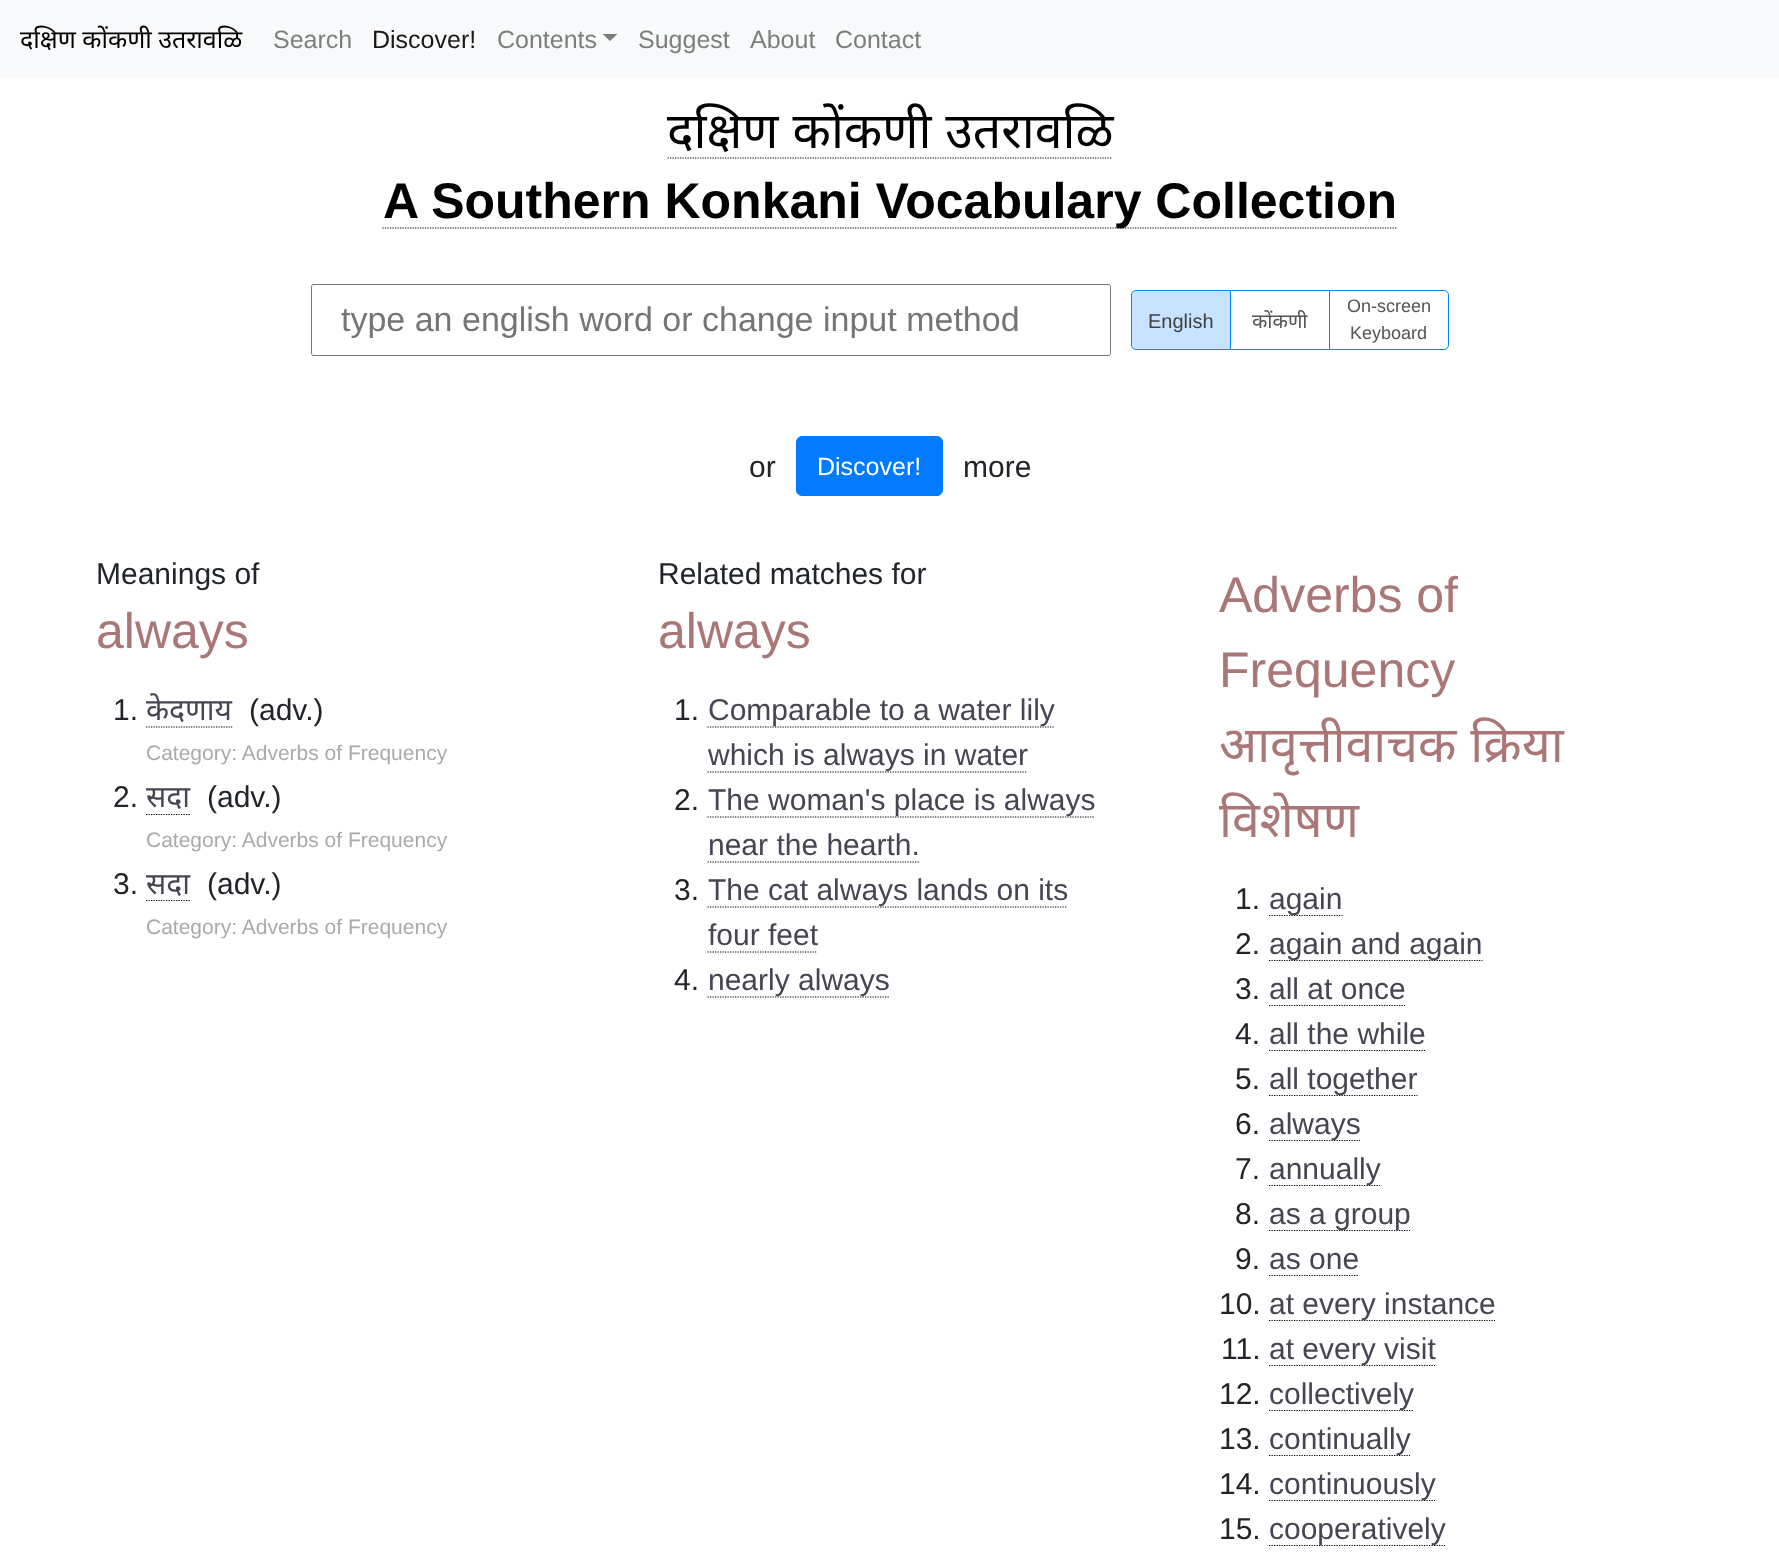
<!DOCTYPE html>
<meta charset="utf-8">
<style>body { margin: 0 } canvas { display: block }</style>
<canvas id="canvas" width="1779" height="1553"></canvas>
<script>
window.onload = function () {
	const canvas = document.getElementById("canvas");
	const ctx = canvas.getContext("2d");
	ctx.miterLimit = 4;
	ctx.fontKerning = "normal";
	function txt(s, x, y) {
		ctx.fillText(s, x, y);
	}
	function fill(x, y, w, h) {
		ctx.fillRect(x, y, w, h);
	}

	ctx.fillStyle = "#FFFFFF";
	fill(0, 0, 1779, 1553);
	ctx.fillStyle = "#F8F9FA";
	fill(0, 0, 1779, 78);
	ctx.fillStyle = "#7C7D7D";
	ctx.beginPath();
	ctx.moveTo(602.5, 34);
	ctx.lineTo(617.5, 34);
	ctx.lineTo(610, 41);
	ctx.closePath();
	ctx.fill();
	ctx.beginPath();
	ctx.moveTo(667.5, 158);
	ctx.lineTo(1112.5, 158);
	ctx.strokeStyle = "#000000";
	ctx.lineWidth = 1.2;
	ctx.setLineDash([1.25, 1.25]);
	ctx.stroke();
	ctx.beginPath();
	ctx.moveTo(382.5, 228);
	ctx.lineTo(1397.5, 228);
	ctx.stroke();
	ctx.beginPath();
	ctx.roundRect(311.5, 284.5, 799, 71, 2);
	ctx.strokeStyle = "#767676";
	ctx.lineWidth = 1;
	ctx.setLineDash([]);
	ctx.stroke();
	ctx.strokeStyle = "#0087FF";
	ctx.strokeRect(1230.5, 290.5, 99, 59);
	ctx.fillStyle = "#C7E3FF";
	ctx.beginPath();
	ctx.roundRect(1131.5, 290.5, 99, 59, [4.5, 0, 0, 4.5]);
	ctx.fill();
	ctx.stroke();
	ctx.fillStyle = "#FFFFFF";
	ctx.beginPath();
	ctx.roundRect(1329.5, 290.5, 119, 59, [0, 4.5, 4.5, 0]);
	ctx.fill();
	ctx.stroke();
	ctx.fillStyle = "#007BFF";
	ctx.beginPath();
	ctx.roundRect(796.5, 436.5, 146, 59, 5.5);
	ctx.fill();
	ctx.strokeStyle = "#007BFF";
	ctx.stroke();
	ctx.beginPath();
	ctx.moveTo(146, 727);
	ctx.lineTo(232.5, 727);
	ctx.strokeStyle = "#000000";
	ctx.lineWidth = 1.2;
	ctx.setLineDash([1.25, 1.25]);
	ctx.stroke();
	ctx.beginPath();
	ctx.moveTo(146, 814.5);
	ctx.lineTo(190, 814.5);
	ctx.stroke();
	ctx.beginPath();
	ctx.moveTo(146, 900.5);
	ctx.lineTo(190, 900.5);
	ctx.stroke();
	ctx.beginPath();
	ctx.moveTo(707.5, 727);
	ctx.lineTo(1054, 727);
	ctx.stroke();
	ctx.beginPath();
	ctx.moveTo(707.5, 772);
	ctx.lineTo(1027.5, 772);
	ctx.stroke();
	ctx.beginPath();
	ctx.moveTo(707.5, 817);
	ctx.lineTo(1095, 817);
	ctx.stroke();
	ctx.beginPath();
	ctx.moveTo(707.5, 862);
	ctx.lineTo(919, 862);
	ctx.stroke();
	ctx.beginPath();
	ctx.moveTo(707.5, 907);
	ctx.lineTo(1067.5, 907);
	ctx.stroke();
	ctx.beginPath();
	ctx.moveTo(707.5, 952);
	ctx.lineTo(817.5, 952);
	ctx.stroke();
	ctx.beginPath();
	ctx.moveTo(707.5, 997);
	ctx.lineTo(889, 997);
	ctx.stroke();
	ctx.beginPath();
	ctx.moveTo(1269, 915.5);
	ctx.lineTo(1342.5, 915.5);
	ctx.stroke();
	ctx.beginPath();
	ctx.moveTo(1269, 960.5);
	ctx.lineTo(1482.5, 960.5);
	ctx.stroke();
	ctx.beginPath();
	ctx.moveTo(1269, 1005.5);
	ctx.lineTo(1405, 1005.5);
	ctx.stroke();
	ctx.beginPath();
	ctx.moveTo(1269, 1050.5);
	ctx.lineTo(1425, 1050.5);
	ctx.stroke();
	ctx.beginPath();
	ctx.moveTo(1269, 1095.5);
	ctx.lineTo(1417.5, 1095.5);
	ctx.stroke();
	ctx.beginPath();
	ctx.moveTo(1269, 1140.5);
	ctx.lineTo(1360, 1140.5);
	ctx.stroke();
	ctx.beginPath();
	ctx.moveTo(1269, 1185.5);
	ctx.lineTo(1380, 1185.5);
	ctx.stroke();
	ctx.beginPath();
	ctx.moveTo(1269, 1230.5);
	ctx.lineTo(1410, 1230.5);
	ctx.stroke();
	ctx.beginPath();
	ctx.moveTo(1269, 1275.5);
	ctx.lineTo(1359, 1275.5);
	ctx.stroke();
	ctx.beginPath();
	ctx.moveTo(1269, 1320.5);
	ctx.lineTo(1495, 1320.5);
	ctx.stroke();
	ctx.beginPath();
	ctx.moveTo(1269, 1365.5);
	ctx.lineTo(1435, 1365.5);
	ctx.stroke();
	ctx.beginPath();
	ctx.moveTo(1269, 1410.5);
	ctx.lineTo(1414, 1410.5);
	ctx.stroke();
	ctx.beginPath();
	ctx.moveTo(1269, 1455.5);
	ctx.lineTo(1410, 1455.5);
	ctx.stroke();
	ctx.beginPath();
	ctx.moveTo(1269, 1500.5);
	ctx.lineTo(1435, 1500.5);
	ctx.stroke();
	ctx.beginPath();
	ctx.moveTo(1269, 1545.5);
	ctx.lineTo(1445, 1545.5);
	ctx.stroke();
	ctx.font = "25px Noto Sans";
	ctx.fillStyle = "#000000";
	txt("दक्षिण कोंकणी उतरावळि", 20, 48);
	ctx.font = "25px Liberation Sans";
	ctx.fillStyle = "#7C7D7D";
	txt("Search", 273, 48);
	ctx.fillStyle = "#191919";
	txt("Discover!", 372, 48);
	ctx.fillStyle = "#7C7D7D";
	txt("Contents", 497, 48);
	txt("Suggest", 638, 48);
	txt("About", 750, 48);
	txt("Contact", 835, 48);
	ctx.wordSpacing = "1px";
	ctx.font = "50px Noto Sans";
	ctx.fillStyle = "#000000";
	txt("दक्षिण कोंकणी उतरावळि", 667, 148);
	ctx.wordSpacing = "0px";
	ctx.font = "bold 50px Liberation Sans";
	txt("A Southern Konkani Vocabulary Collection", 383, 218);
	ctx.font = "34px Liberation Sans";
	ctx.fillStyle = "#757575";
	txt("type an english word or change input method", 341, 331);
	ctx.font = "20px Liberation Sans";
	ctx.fillStyle = "#414141";
	txt("English", 1148, 328);
	ctx.font = "20px Noto Sans";
	ctx.fillStyle = "#545454";
	txt("कोंकणी", 1252, 328);
	ctx.font = "18px Liberation Sans";
	txt("On-screen", 1347, 312);
	txt("Keyboard", 1350, 339);
	ctx.font = "30px Liberation Sans";
	ctx.fillStyle = "#212529";
	txt("or", 749, 477);
	ctx.font = "25px Liberation Sans";
	ctx.fillStyle = "#FFFFFF";
	txt("Discover!", 817, 475);
	ctx.font = "30px Liberation Sans";
	ctx.fillStyle = "#212529";
	txt("more", 963, 477);
	txt("Meanings of", 96, 584);
	ctx.font = "50px Liberation Sans";
	ctx.fillStyle = "#AA7777";
	txt("always", 96, 648);
	ctx.font = "30px Liberation Sans";
	ctx.fillStyle = "#212529";
	txt("1.", 113, 720);
	ctx.font = "30px Noto Sans";
	ctx.fillStyle = "#484452";
	txt("केदणाय", 146, 720);
	ctx.font = "30px Liberation Sans";
	ctx.fillStyle = "#212529";
	txt("(adv.)", 249, 720);
	ctx.font = "21px Liberation Sans";
	ctx.fillStyle = "#AAAAAA";
	txt("Category: Adverbs of Frequency", 146, 760);
	ctx.font = "30px Liberation Sans";
	ctx.fillStyle = "#212529";
	txt("2.", 113, 807);
	ctx.font = "30px Noto Sans";
	ctx.fillStyle = "#484452";
	txt("सदा", 146, 807);
	ctx.font = "30px Liberation Sans";
	ctx.fillStyle = "#212529";
	txt("(adv.)", 207, 807);
	ctx.font = "21px Liberation Sans";
	ctx.fillStyle = "#AAAAAA";
	txt("Category: Adverbs of Frequency", 146, 847);
	ctx.font = "30px Liberation Sans";
	ctx.fillStyle = "#212529";
	txt("3.", 113, 894);
	ctx.font = "30px Noto Sans";
	ctx.fillStyle = "#484452";
	txt("सदा", 146, 894);
	ctx.font = "30px Liberation Sans";
	ctx.fillStyle = "#212529";
	txt("(adv.)", 207, 894);
	ctx.font = "21px Liberation Sans";
	ctx.fillStyle = "#AAAAAA";
	txt("Category: Adverbs of Frequency", 146, 934);
	ctx.font = "30px Liberation Sans";
	ctx.fillStyle = "#212529";
	txt("Related matches for", 658, 584);
	ctx.font = "50px Liberation Sans";
	ctx.fillStyle = "#AA7777";
	txt("always", 658, 648);
	ctx.font = "30px Liberation Sans";
	ctx.fillStyle = "#212529";
	txt("1.", 674, 720);
	ctx.fillStyle = "#484452";
	txt("Comparable to a water lily", 708, 720);
	txt("which is always in water", 708, 765);
	ctx.fillStyle = "#212529";
	txt("2.", 674, 810);
	ctx.fillStyle = "#484452";
	txt("The woman's place is always", 708, 810);
	txt("near the hearth.", 708, 855);
	ctx.fillStyle = "#212529";
	txt("3.", 674, 900);
	ctx.fillStyle = "#484452";
	txt("The cat always lands on its", 708, 900);
	txt("four feet", 708, 945);
	ctx.fillStyle = "#212529";
	txt("4.", 674, 990);
	ctx.fillStyle = "#484452";
	txt("nearly always", 708, 990);
	ctx.font = "50px Liberation Sans";
	ctx.fillStyle = "#AA7777";
	txt("Adverbs of", 1219, 612);
	txt("Frequency", 1219, 687);
	ctx.wordSpacing = "1px";
	ctx.font = "50px Noto Sans";
	txt("आवृत्तीवाचक क्रिया", 1219, 762);
	ctx.wordSpacing = "0px";
	txt("विशेषण", 1219, 837);
	ctx.font = "30px Liberation Sans";
	ctx.fillStyle = "#212529";
	txt("1.", 1235, 909);
	ctx.fillStyle = "#484452";
	txt("again", 1269, 909);
	ctx.fillStyle = "#212529";
	txt("2.", 1235, 954);
	ctx.fillStyle = "#484452";
	txt("again and again", 1269, 954);
	ctx.fillStyle = "#212529";
	txt("3.", 1235, 999);
	ctx.fillStyle = "#484452";
	txt("all at once", 1269, 999);
	ctx.fillStyle = "#212529";
	txt("4.", 1235, 1044);
	ctx.fillStyle = "#484452";
	txt("all the while", 1269, 1044);
	ctx.fillStyle = "#212529";
	txt("5.", 1235, 1089);
	ctx.fillStyle = "#484452";
	txt("all together", 1269, 1089);
	ctx.fillStyle = "#212529";
	txt("6.", 1235, 1134);
	ctx.fillStyle = "#484452";
	txt("always", 1269, 1134);
	ctx.fillStyle = "#212529";
	txt("7.", 1235, 1179);
	ctx.fillStyle = "#484452";
	txt("annually", 1269, 1179);
	ctx.fillStyle = "#212529";
	txt("8.", 1235, 1224);
	ctx.fillStyle = "#484452";
	txt("as a group", 1269, 1224);
	ctx.fillStyle = "#212529";
	txt("9.", 1235, 1269);
	ctx.fillStyle = "#484452";
	txt("as one", 1269, 1269);
	ctx.fillStyle = "#212529";
	txt("10.", 1219, 1314);
	ctx.fillStyle = "#484452";
	txt("at every instance", 1269, 1314);
	ctx.fillStyle = "#212529";
	txt("11.", 1221, 1359);
	ctx.fillStyle = "#484452";
	txt("at every visit", 1269, 1359);
	ctx.fillStyle = "#212529";
	txt("12.", 1219, 1404);
	ctx.fillStyle = "#484452";
	txt("collectively", 1269, 1404);
	ctx.fillStyle = "#212529";
	txt("13.", 1219, 1449);
	ctx.fillStyle = "#484452";
	txt("continually", 1269, 1449);
	ctx.fillStyle = "#212529";
	txt("14.", 1219, 1494);
	ctx.fillStyle = "#484452";
	txt("continuously", 1269, 1494);
	ctx.fillStyle = "#212529";
	txt("15.", 1219, 1539);
	ctx.fillStyle = "#484452";
	txt("cooperatively", 1269, 1539);
};
</script>
